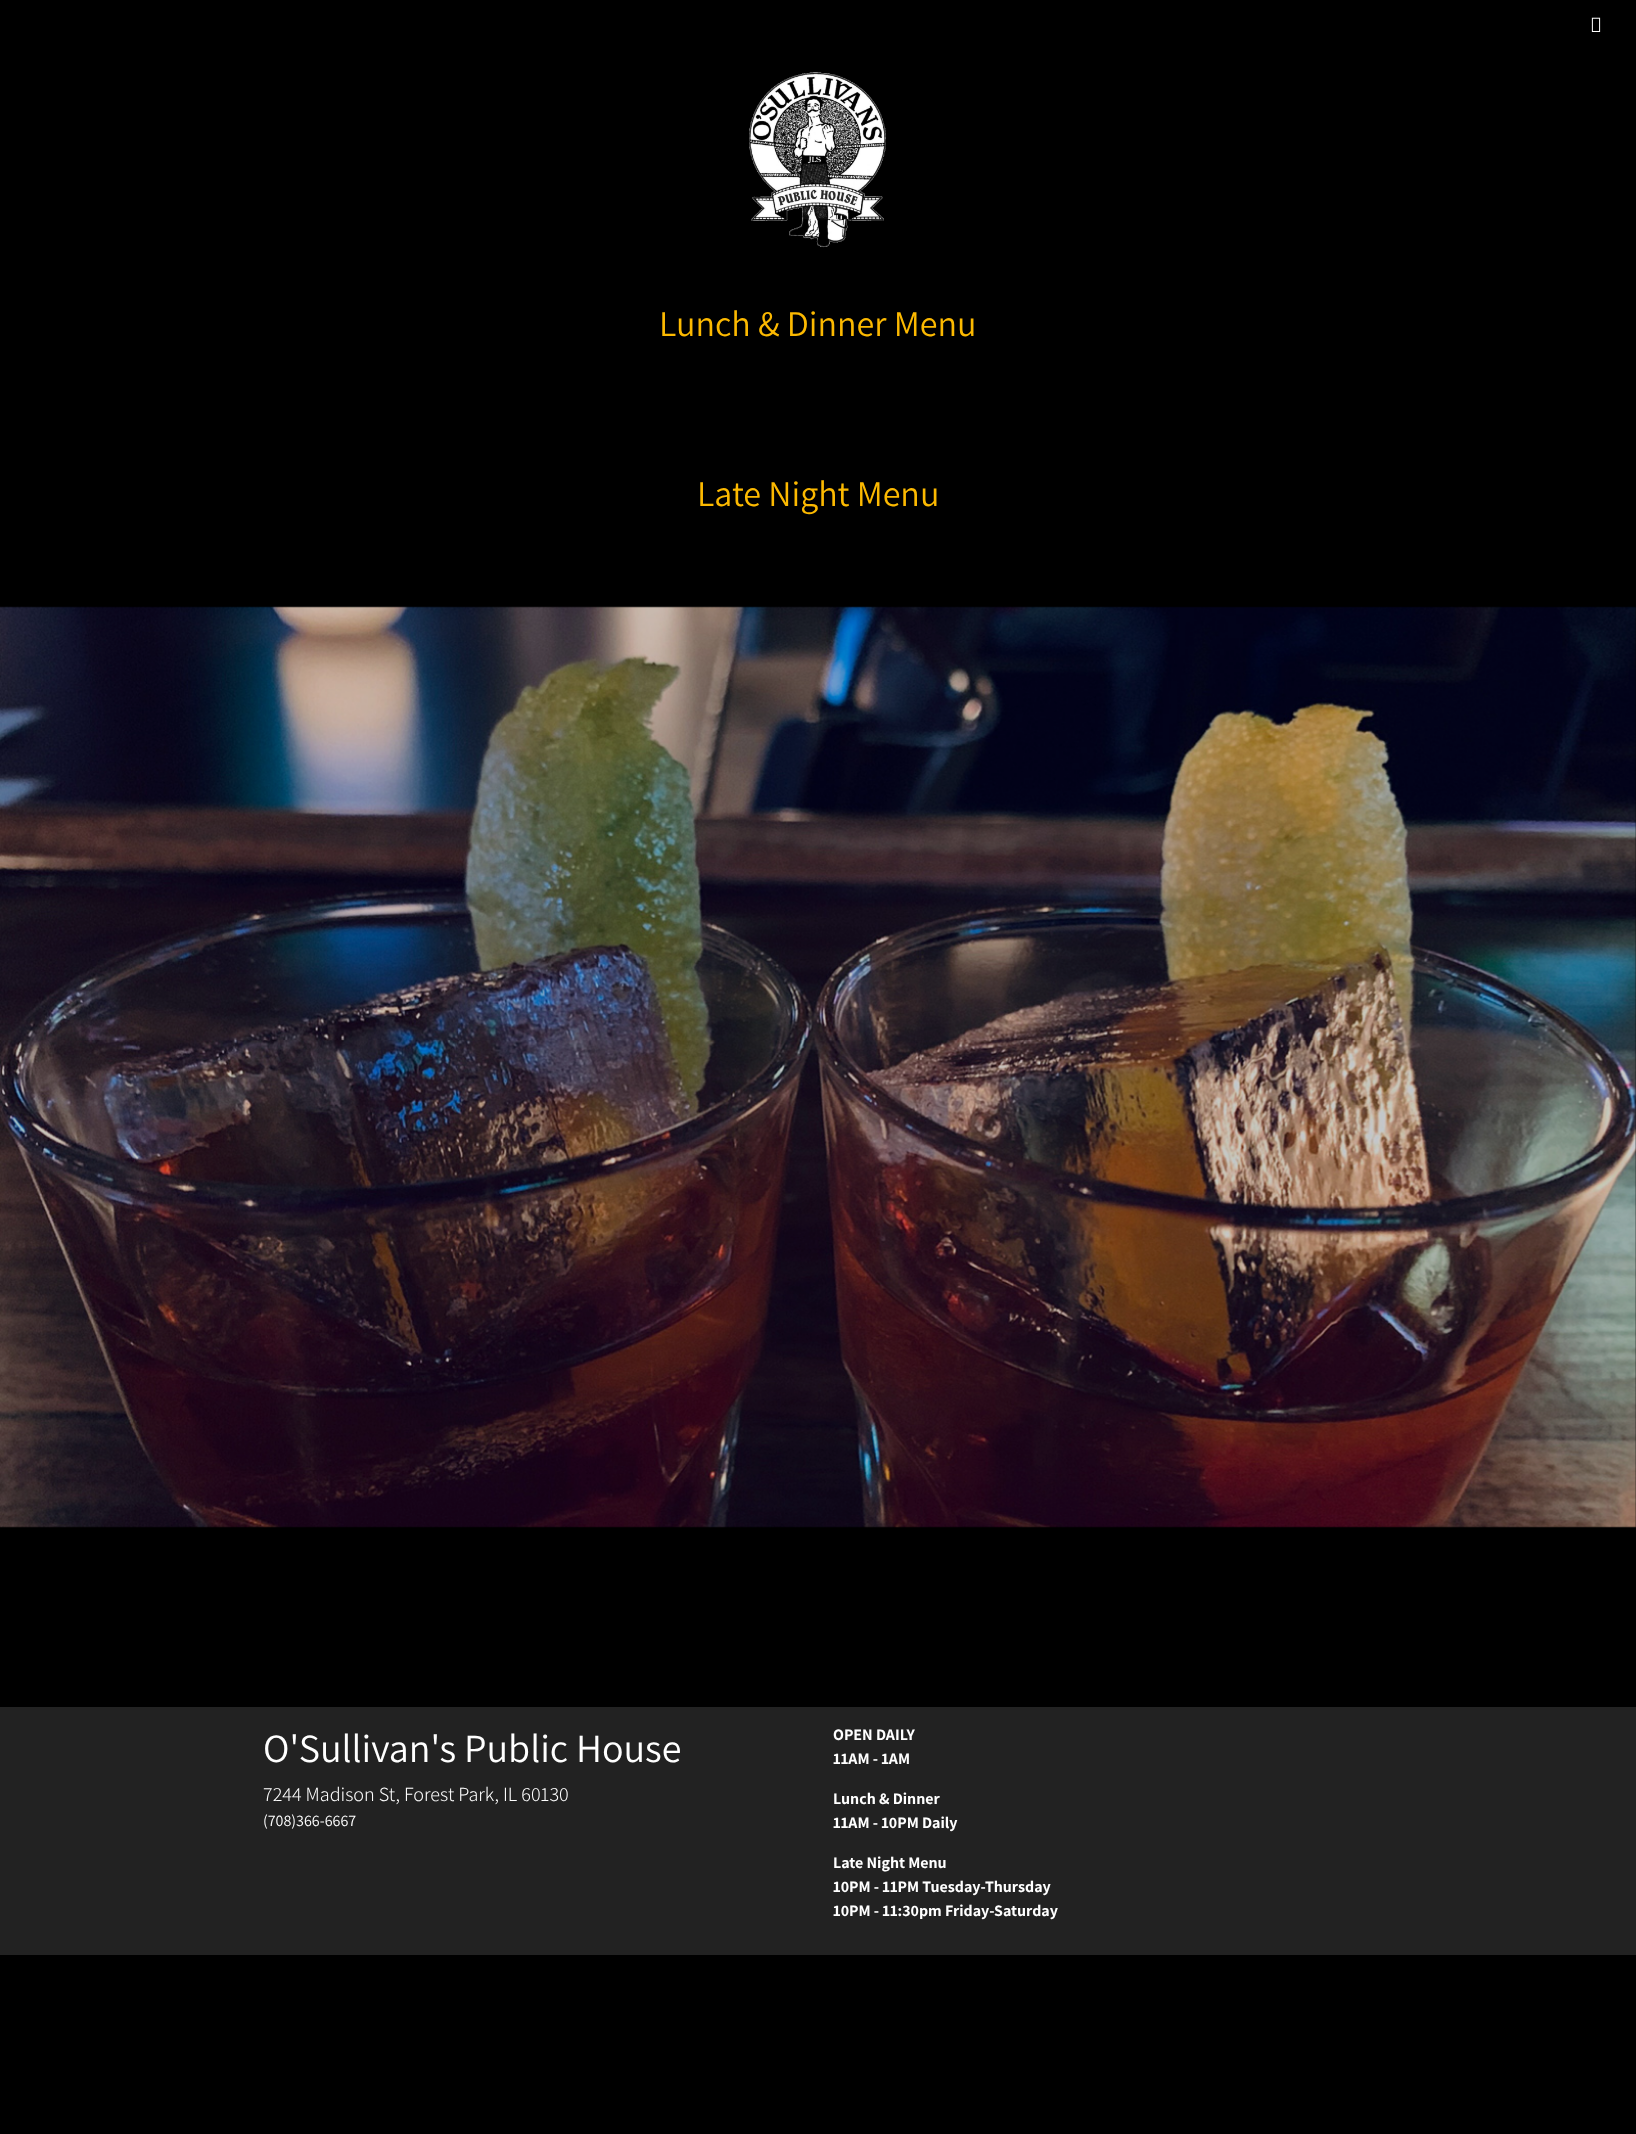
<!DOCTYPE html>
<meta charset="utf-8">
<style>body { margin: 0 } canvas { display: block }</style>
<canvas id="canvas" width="1636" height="2134"></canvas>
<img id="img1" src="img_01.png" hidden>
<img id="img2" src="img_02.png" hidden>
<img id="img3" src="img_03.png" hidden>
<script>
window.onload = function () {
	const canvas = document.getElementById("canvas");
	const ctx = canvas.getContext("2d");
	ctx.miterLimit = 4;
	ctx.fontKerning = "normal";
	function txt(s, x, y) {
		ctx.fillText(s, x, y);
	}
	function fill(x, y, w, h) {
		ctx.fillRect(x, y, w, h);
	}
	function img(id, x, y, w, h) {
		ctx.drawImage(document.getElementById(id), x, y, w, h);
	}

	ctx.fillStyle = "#000000";
	fill(0, 0, 1636, 2134);
	img("img1", 1591, 17, 10, 15);
	img("img2", 749, 72, 137, 176);
	img("img3", 0, 606, 1636, 922);
	ctx.fillStyle = "#222222";
	fill(0, 1707, 1636, 248);
	ctx.font = "36px Assistant";
	ctx.fillStyle = "#FCB900";
	txt("Lunch & Dinner Menu", 659, 336);
	txt("Late Night Menu", 697, 506);
	ctx.font = "40px Assistant";
	ctx.fillStyle = "#FFFFFF";
	txt("O'Sullivan's Public House", 263, 1762);
	ctx.font = "300 20px Assistant";
	txt("7244 Madison St, Forest Park, IL 60130", 263, 1801);
	ctx.font = "16px Assistant";
	txt("(708)366-6667", 263, 1826);
	ctx.font = "bold 16px Assistant";
	txt("OPEN DAILY", 833, 1740);
	txt("11AM - 1AM", 833, 1764);
	txt("Lunch & Dinner", 833, 1804);
	txt("11AM - 10PM Daily", 833, 1828);
	txt("Late Night Menu", 833, 1868);
	txt("10PM - 11PM Tuesday-Thursday", 833, 1892);
	txt("10PM - 11:30pm Friday-Saturday", 833, 1916);
};
</script>
